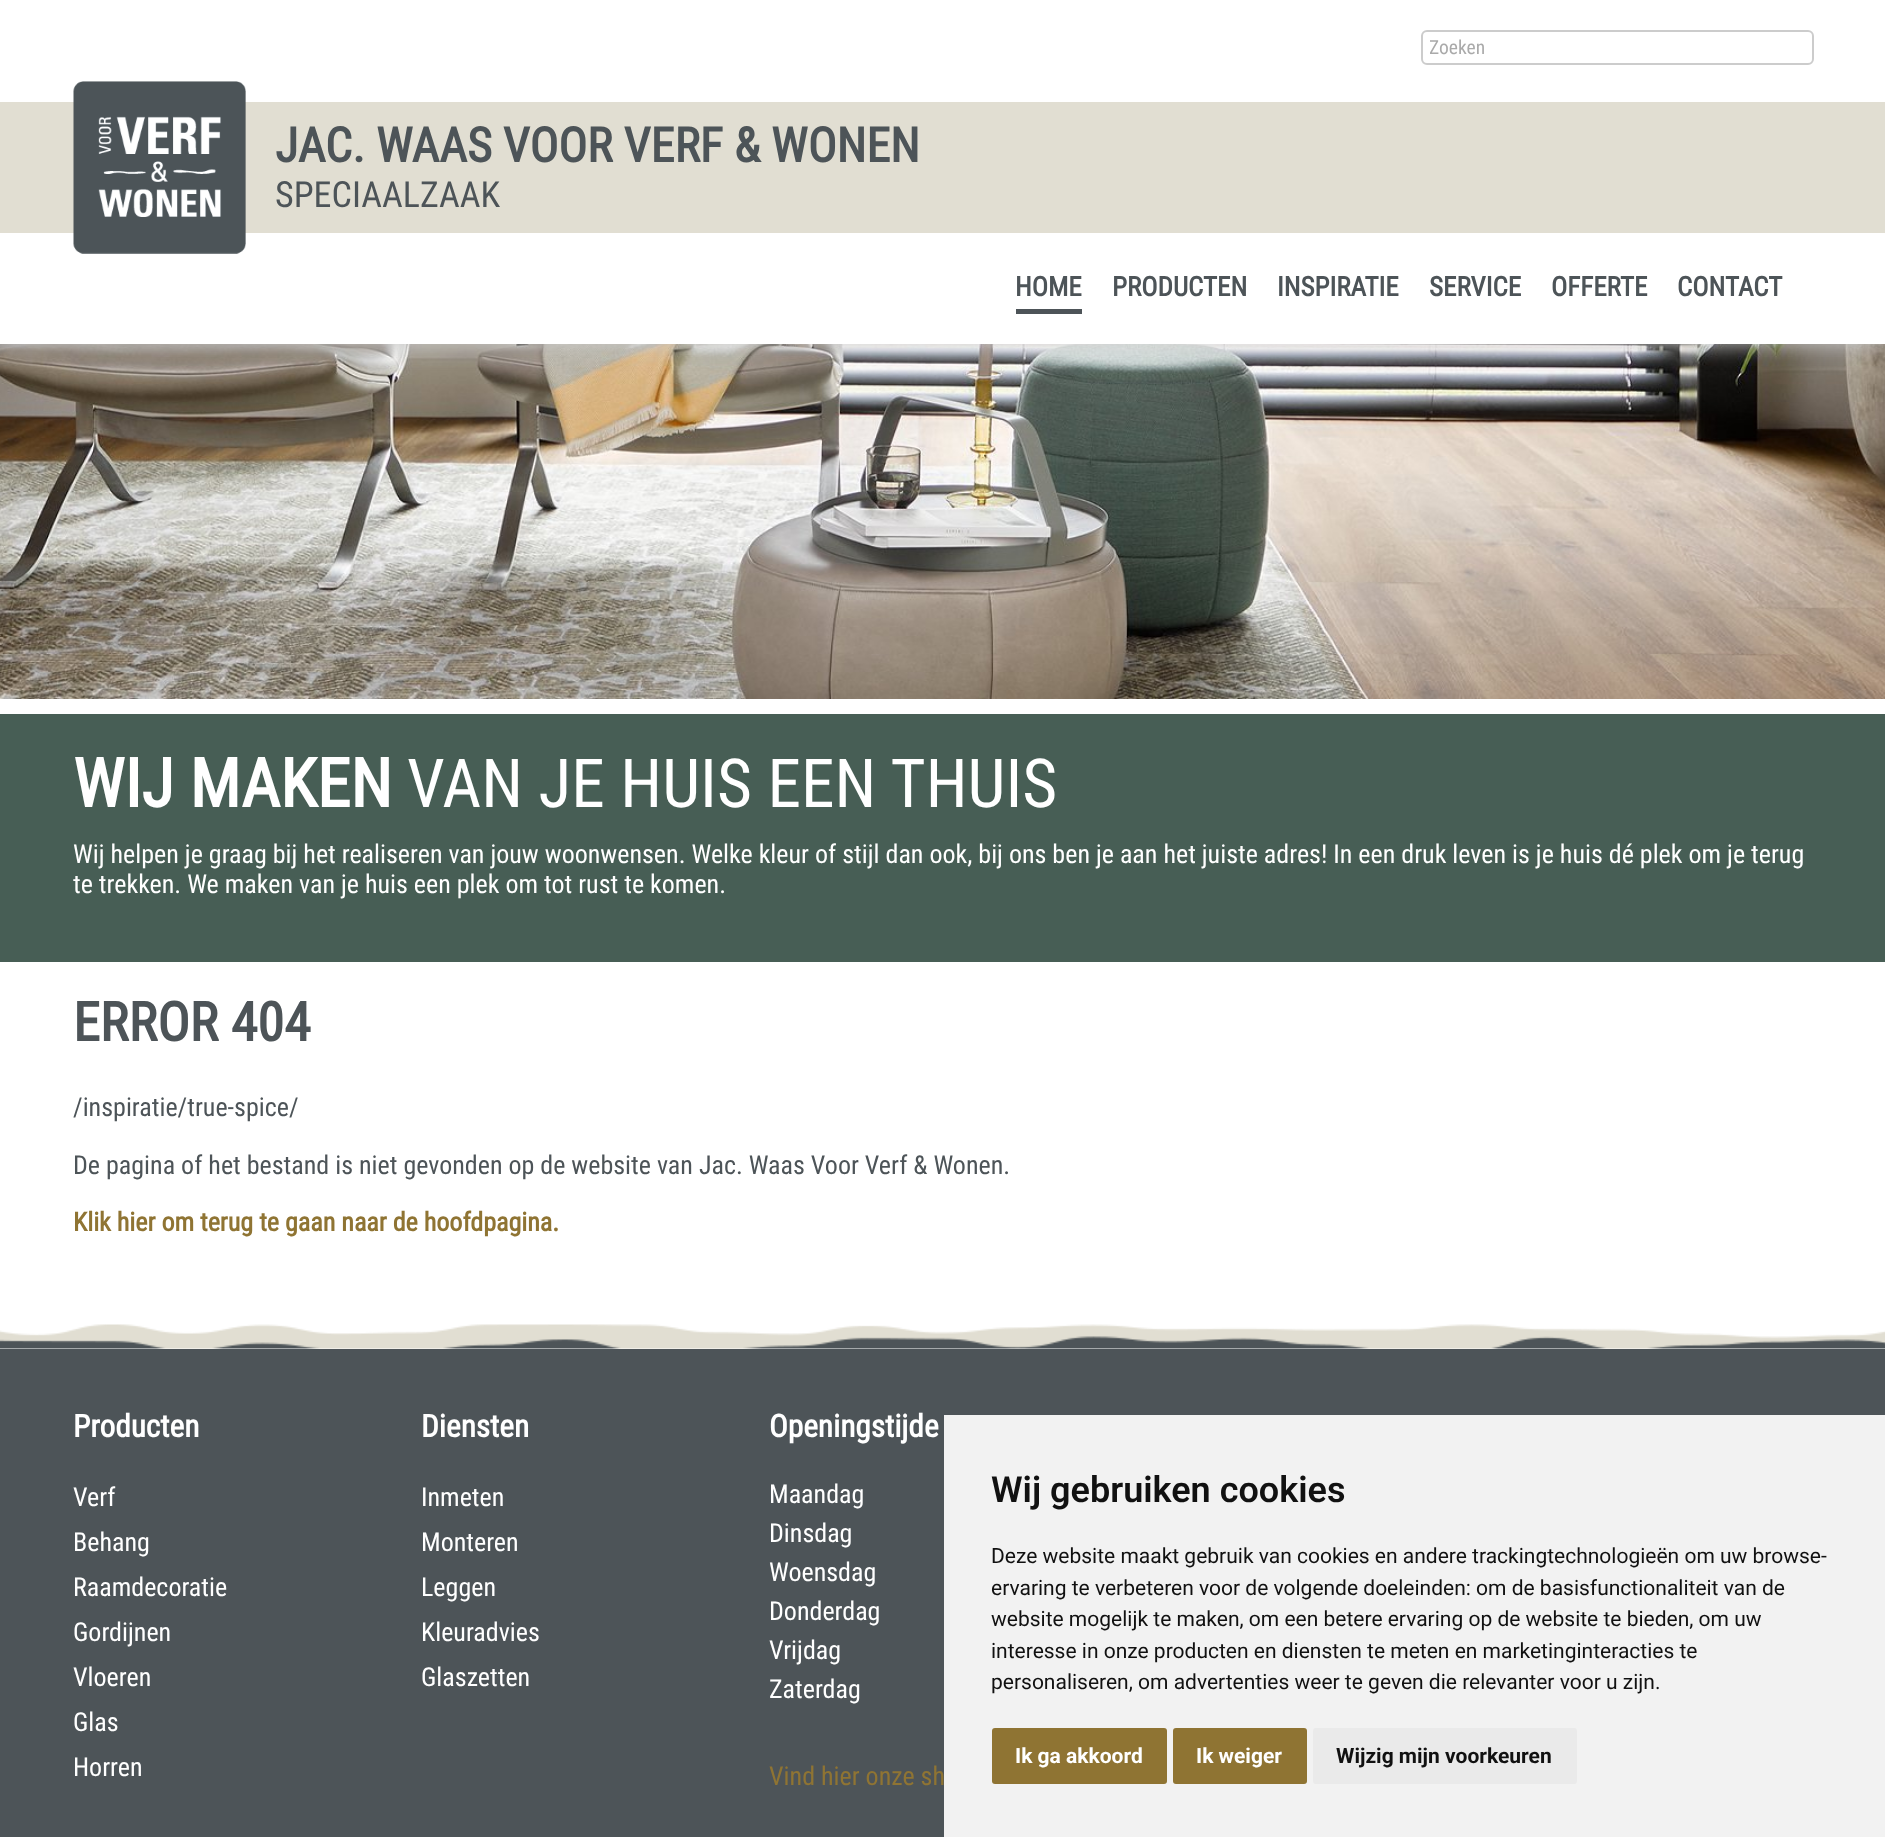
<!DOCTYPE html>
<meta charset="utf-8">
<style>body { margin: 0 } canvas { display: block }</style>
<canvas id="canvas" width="1885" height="1837"></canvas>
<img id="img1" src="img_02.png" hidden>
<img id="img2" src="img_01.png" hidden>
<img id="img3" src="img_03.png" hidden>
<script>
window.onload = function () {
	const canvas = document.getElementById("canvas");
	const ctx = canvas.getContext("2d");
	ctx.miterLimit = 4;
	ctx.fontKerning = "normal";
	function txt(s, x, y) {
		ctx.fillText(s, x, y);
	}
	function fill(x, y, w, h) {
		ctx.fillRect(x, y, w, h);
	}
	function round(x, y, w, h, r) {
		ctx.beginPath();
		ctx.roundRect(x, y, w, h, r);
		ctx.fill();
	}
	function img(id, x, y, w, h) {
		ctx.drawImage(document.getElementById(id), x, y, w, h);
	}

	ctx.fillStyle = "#FFFFFF";
	fill(0, 0, 1885, 1837);
	img("img1", 0, 344, 1885, 355);
	ctx.fillStyle = "#CCCCCC";
	ctx.filter = "blur(11px)";
	ctx.beginPath();
	ctx.rect(0, 0, 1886, 344);
	ctx.fill();
	ctx.filter = "none";
	ctx.fillStyle = "#FFFFFF";
	fill(0, 0, 1885, 344);
	ctx.beginPath();
	ctx.roundRect(1422, 31, 391, 33, 5);
	ctx.strokeStyle = "#CCCCCC";
	ctx.lineWidth = 2;
	ctx.stroke();
	ctx.fillStyle = "#E1DED2";
	fill(0, 102, 1885, 131);
	img("img2", 73, 81, 173, 173);
	ctx.fillStyle = "#4D5458";
	fill(1016, 309, 66, 5);
	ctx.fillStyle = "#475E55";
	fill(0, 714, 1885, 248);
	img("img3", 0, 1324, 1885, 25);
	ctx.fillStyle = "#4D5458";
	fill(0, 1349, 1885, 488);
	ctx.fillStyle = "#F2F2F2";
	fill(944, 1415, 941, 422);
	ctx.fillStyle = "#8F7433";
	round(992, 1728, 175, 56, 3);
	round(1173, 1728, 134, 56, 3);
	ctx.fillStyle = "#EAEAEA";
	round(1313, 1728, 264, 56, 3);
	ctx.save();
	ctx.beginPath();
	ctx.rect(1430, 36, 375, 23);
	ctx.clip();
	ctx.font = "19.5px Roboto Condensed";
	ctx.fillStyle = "#AAAAAA";
	txt("Zoeken", 1429, 54);
	ctx.restore();
	ctx.font = "bold 48px Roboto Condensed";
	ctx.fillStyle = "#4D5458";
	txt("JAC. WAAS VOOR VERF & WONEN", 275, 162);
	ctx.font = "36px Roboto Condensed";
	txt("SPECIAALZAAK", 275, 207);
	ctx.font = "bold 27px Roboto Condensed";
	txt("HOME", 1015, 296);
	txt("PRODUCTEN", 1112, 296);
	txt("INSPIRATIE", 1277, 296);
	txt("SERVICE", 1429, 296);
	txt("OFFERTE", 1551, 296);
	txt("CONTACT", 1677, 296);
	ctx.font = "bold 67.5px Roboto Condensed";
	ctx.fillStyle = "#FFFFFF";
	txt("WIJ MAKEN", 73, 807);
	ctx.font = "67.5px Roboto Condensed";
	txt("VAN JE HUIS EEN THUIS", 407, 807);
	ctx.font = "26px Roboto Condensed";
	txt("Wij helpen je graag bij het realiseren van jouw woonwensen. Welke kleur of stijl dan ook, bij ons ben je aan het juiste adres! In een druk leven is je huis dé plek om je terug", 73, 863);
	txt("te trekken. We maken van je huis een plek om tot rust te komen.", 73, 893);
	ctx.font = "bold 54px Roboto Condensed";
	ctx.fillStyle = "#4D5458";
	txt("ERROR 404", 73, 1041);
	ctx.font = "26px Roboto Condensed";
	txt("/inspiratie/true-spice/", 73, 1116);
	txt("De pagina of het bestand is niet gevonden op de website van Jac. Waas Voor Verf & Wonen.", 73, 1174);
	ctx.font = "bold 26px Roboto Condensed";
	ctx.fillStyle = "#8F7433";
	txt("Klik hier om terug te gaan naar de hoofdpagina.", 73, 1231);
	ctx.font = "bold 31.25px Roboto Condensed";
	ctx.fillStyle = "#FFFFFF";
	txt("Producten", 73, 1437);
	ctx.font = "26px Roboto Condensed";
	txt("Verf", 73, 1506);
	txt("Behang", 73, 1551);
	txt("Raamdecoratie", 73, 1596);
	txt("Gordijnen", 73, 1641);
	txt("Vloeren", 73, 1686);
	txt("Glas", 73, 1731);
	txt("Horren", 73, 1776);
	ctx.font = "bold 31.25px Roboto Condensed";
	txt("Diensten", 421, 1437);
	ctx.font = "26px Roboto Condensed";
	txt("Inmeten", 421, 1506);
	txt("Monteren", 421, 1551);
	txt("Leggen", 421, 1596);
	txt("Kleuradvies", 421, 1641);
	txt("Glaszetten", 421, 1686);
	ctx.font = "bold 31.25px Roboto Condensed";
	txt("Openingstijde", 769, 1437);
	ctx.font = "26px Roboto Condensed";
	txt("Maandag", 769, 1503);
	txt("Dinsdag", 769, 1542);
	txt("Woensdag", 769, 1581);
	txt("Donderdag", 769, 1620);
	txt("Vrijdag", 769, 1659);
	txt("Zaterdag", 769, 1698);
	ctx.fillStyle = "#8F7433";
	txt("Vind hier onze sh", 769, 1785);
	ctx.font = "600 36px Roboto";
	ctx.fillStyle = "#111111";
	txt("Wij gebruiken cookies", 991, 1502);
	ctx.font = "21px Roboto";
	txt("Deze website maakt gebruik van cookies en andere trackingtechnologieën om uw browse-", 991, 1563);
	txt("ervaring te verbeteren voor de volgende doeleinden: om de basisfunctionaliteit van de", 991, 1595);
	txt("website mogelijk te maken, om een betere ervaring op de website te bieden, om uw", 991, 1626);
	txt("interesse in onze producten en diensten te meten en marketinginteracties te", 991, 1658);
	txt("personaliseren, om advertenties weer te geven die relevanter voor u zijn.", 991, 1689);
	ctx.font = "bold 21px Roboto";
	ctx.fillStyle = "#FFFFFF";
	txt("Ik ga akkoord", 1015, 1763);
	txt("Ik weiger", 1196, 1763);
	ctx.fillStyle = "#111111";
	txt("Wijzig mijn voorkeuren", 1336, 1763);
};
</script>
